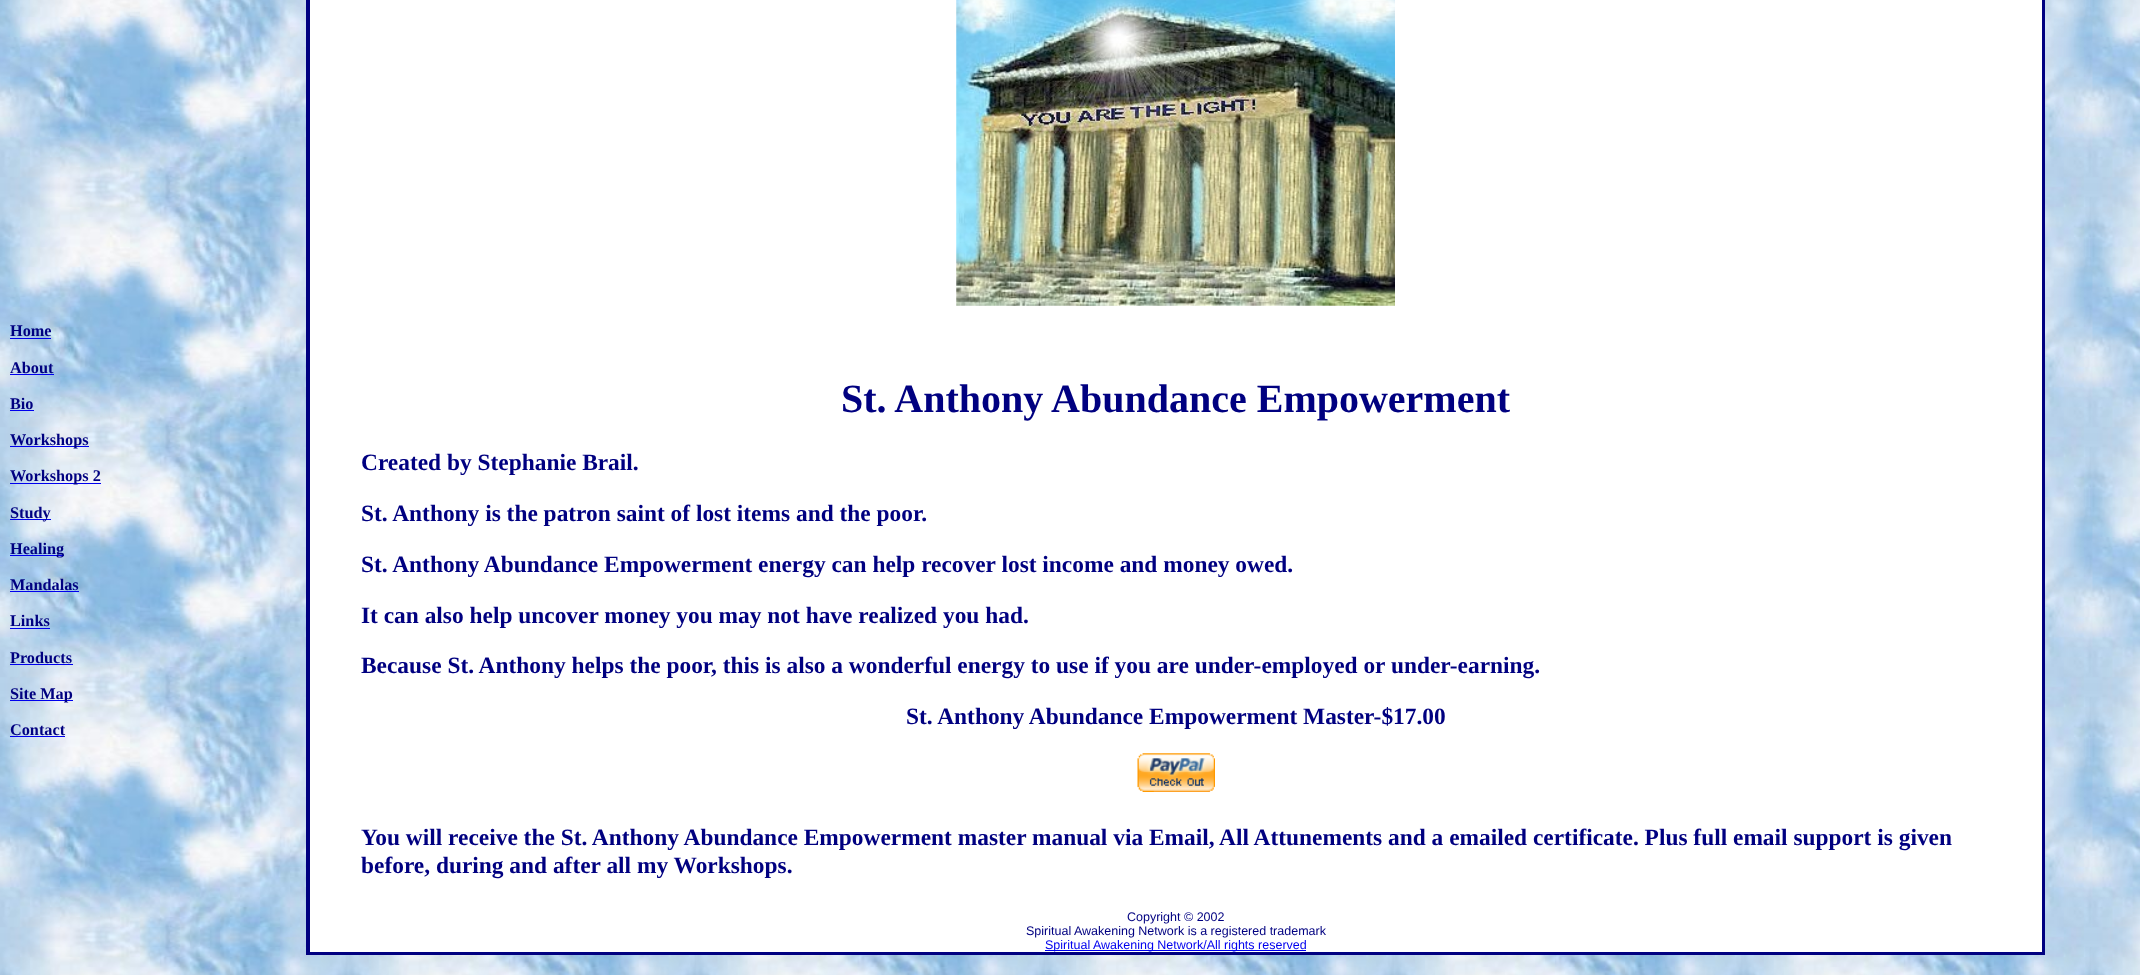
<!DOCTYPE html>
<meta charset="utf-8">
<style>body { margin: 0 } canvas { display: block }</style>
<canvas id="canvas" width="2140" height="975"></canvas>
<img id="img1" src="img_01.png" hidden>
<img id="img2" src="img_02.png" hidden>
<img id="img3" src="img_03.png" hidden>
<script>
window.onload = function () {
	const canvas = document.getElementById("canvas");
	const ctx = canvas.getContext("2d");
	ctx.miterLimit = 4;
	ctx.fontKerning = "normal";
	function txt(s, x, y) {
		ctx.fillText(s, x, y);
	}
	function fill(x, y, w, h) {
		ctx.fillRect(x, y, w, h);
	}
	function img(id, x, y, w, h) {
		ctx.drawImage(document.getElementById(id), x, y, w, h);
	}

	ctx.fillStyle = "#FFFFFF";
	fill(0, 0, 2140, 975);
	img("img1", 0, 0, 2140, 975);
	ctx.fillStyle = "#0000EE";
	fill(10, 338, 41, 1);
	fill(10, 374, 44, 1);
	fill(10, 410, 24, 1);
	fill(10, 446, 79, 1);
	fill(10, 483, 91, 1);
	fill(10, 519, 41, 1);
	fill(10, 555, 54, 1);
	fill(10, 591, 69, 1);
	fill(10, 628, 40, 1);
	fill(10, 664, 63, 1);
	fill(10, 700, 63, 1);
	fill(10, 736, 55, 1);
	ctx.fillStyle = "#FFFFFF";
	fill(310, 0, 1732, 952);
	ctx.strokeStyle = "#000080";
	ctx.lineWidth = 3;
	ctx.strokeRect(307.5, -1.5, 1736, 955);
	ctx.lineWidth = 1;
	ctx.strokeRect(309.5, -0.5, 1733, 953);
	img("img2", 956, 0, 439, 306);
	img("img3", 1137, 753, 78, 39);
	ctx.fillStyle = "#0000EE";
	fill(1045, 950, 261, 1);
	ctx.font = "bold 16.25px Liberation Serif";
	ctx.fillStyle = "#000080";
	txt("Home", 10, 336);
	txt("About", 10, 373);
	txt("Bio", 10, 409);
	txt("Workshops", 10, 445);
	txt("Workshops 2", 10, 481);
	txt("Study", 10, 518);
	txt("Healing", 10, 554);
	txt("Mandalas", 10, 590);
	txt("Links", 10, 626);
	txt("Products", 10, 663);
	txt("Site Map", 10, 699);
	txt("Contact", 10, 735);
	ctx.font = "bold 40px Liberation Serif";
	txt("St. Anthony Abundance Empowerment", 841, 412);
	ctx.font = "bold 23.4px Liberation Serif";
	txt("Created by Stephanie Brail.", 361, 470);
	txt("St. Anthony is the patron saint of lost items and the poor.", 361, 521);
	txt("St. Anthony Abundance Empowerment energy can help recover lost income and money owed.", 361, 572);
	txt("It can also help uncover money you may not have realized you had.", 361, 623);
	txt("Because St. Anthony helps the poor, this is also a wonderful energy to use if you are under-employed or under-earning.", 361, 673);
	txt("St. Anthony Abundance Empowerment Master-$17.00", 906, 724);
	txt("You will receive the St. Anthony Abundance Empowerment master manual via Email, All Attunements and a emailed certificate. Plus full email support is given", 361, 845);
	txt("before, during and after all my Workshops.", 361, 873);
	ctx.font = "12.5px Liberation Sans";
	txt("Copyright © 2002", 1127, 921);
	txt("Spiritual Awakening Network is a registered trademark", 1026, 935);
	ctx.fillStyle = "#0000EE";
	txt("Spiritual Awakening Network/All rights reserved", 1045, 949);
};
</script>
